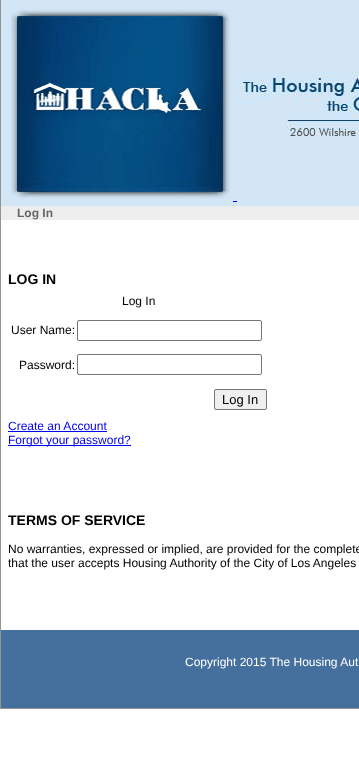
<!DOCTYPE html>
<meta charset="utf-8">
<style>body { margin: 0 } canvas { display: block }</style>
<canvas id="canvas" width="359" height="765"></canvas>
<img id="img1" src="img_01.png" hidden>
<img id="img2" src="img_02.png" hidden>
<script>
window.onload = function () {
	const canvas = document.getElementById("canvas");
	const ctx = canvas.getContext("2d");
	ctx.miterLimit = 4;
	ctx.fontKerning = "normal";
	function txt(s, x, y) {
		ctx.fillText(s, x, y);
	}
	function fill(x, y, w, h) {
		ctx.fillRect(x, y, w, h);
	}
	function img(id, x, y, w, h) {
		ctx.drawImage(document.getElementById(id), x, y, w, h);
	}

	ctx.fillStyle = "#FFFFFF";
	fill(0, 0, 359, 765);
	ctx.fillStyle = "#D3E6F5";
	fill(1, 0, 358, 206);
	ctx.fillStyle = "#949493";
	fill(0, 0, 1, 630);
	img("img1", 11, 9, 220, 190);
	img("img2", 237, 72, 122, 64);
	ctx.fillStyle = "#0000EE";
	fill(233, 201, 4, 1);
	ctx.fillStyle = "#EDEDED";
	fill(1, 206, 358, 14);
	ctx.beginPath();
	ctx.roundRect(77.5, 320.5, 184, 20, 1.5);
	ctx.strokeStyle = "#767676";
	ctx.stroke();
	ctx.beginPath();
	ctx.roundRect(77.5, 354.5, 184, 20, 1.5);
	ctx.stroke();
	ctx.fillStyle = "#EFEFEF";
	ctx.beginPath();
	ctx.roundRect(214.5, 389.5, 52, 20, 1.5);
	ctx.fill();
	ctx.stroke();
	ctx.fillStyle = "#0000EE";
	fill(8, 431, 99, 1);
	fill(8, 445, 123, 1);
	ctx.fillStyle = "#949493";
	fill(0, 708, 359, 1);
	fill(0, 630, 1, 79);
	ctx.fillStyle = "#45709D";
	fill(1, 630, 358, 78);
	ctx.font = "bold 12px Liberation Sans";
	ctx.fillStyle = "#666666";
	txt("Log In", 17, 217);
	ctx.font = "bold 14px Liberation Sans";
	ctx.fillStyle = "#000000";
	txt("LOG IN", 8, 284);
	ctx.font = "12px Liberation Sans";
	txt("Log In", 122, 305);
	txt("User Name:", 11, 334);
	txt("Password:", 19, 369);
	ctx.font = "13px Liberation Sans";
	txt("Log In", 222, 404);
	ctx.font = "12px Liberation Sans";
	ctx.fillStyle = "#0000EE";
	txt("Create an Account", 8, 430);
	txt("Forgot your password?", 8, 444);
	ctx.font = "bold 14px Liberation Sans";
	ctx.fillStyle = "#000000";
	txt("TERMS OF SERVICE", 8, 525);
	ctx.font = "12px Liberation Sans";
	txt("No warranties, expressed or implied, are provided for the complete", 8, 553);
	txt("that the user accepts Housing Authority of the City of Los Angeles", 8, 567);
	ctx.fillStyle = "#FFFFFF";
	txt("Copyright 2015 The Housing Aut", 185, 666);
};
</script>
